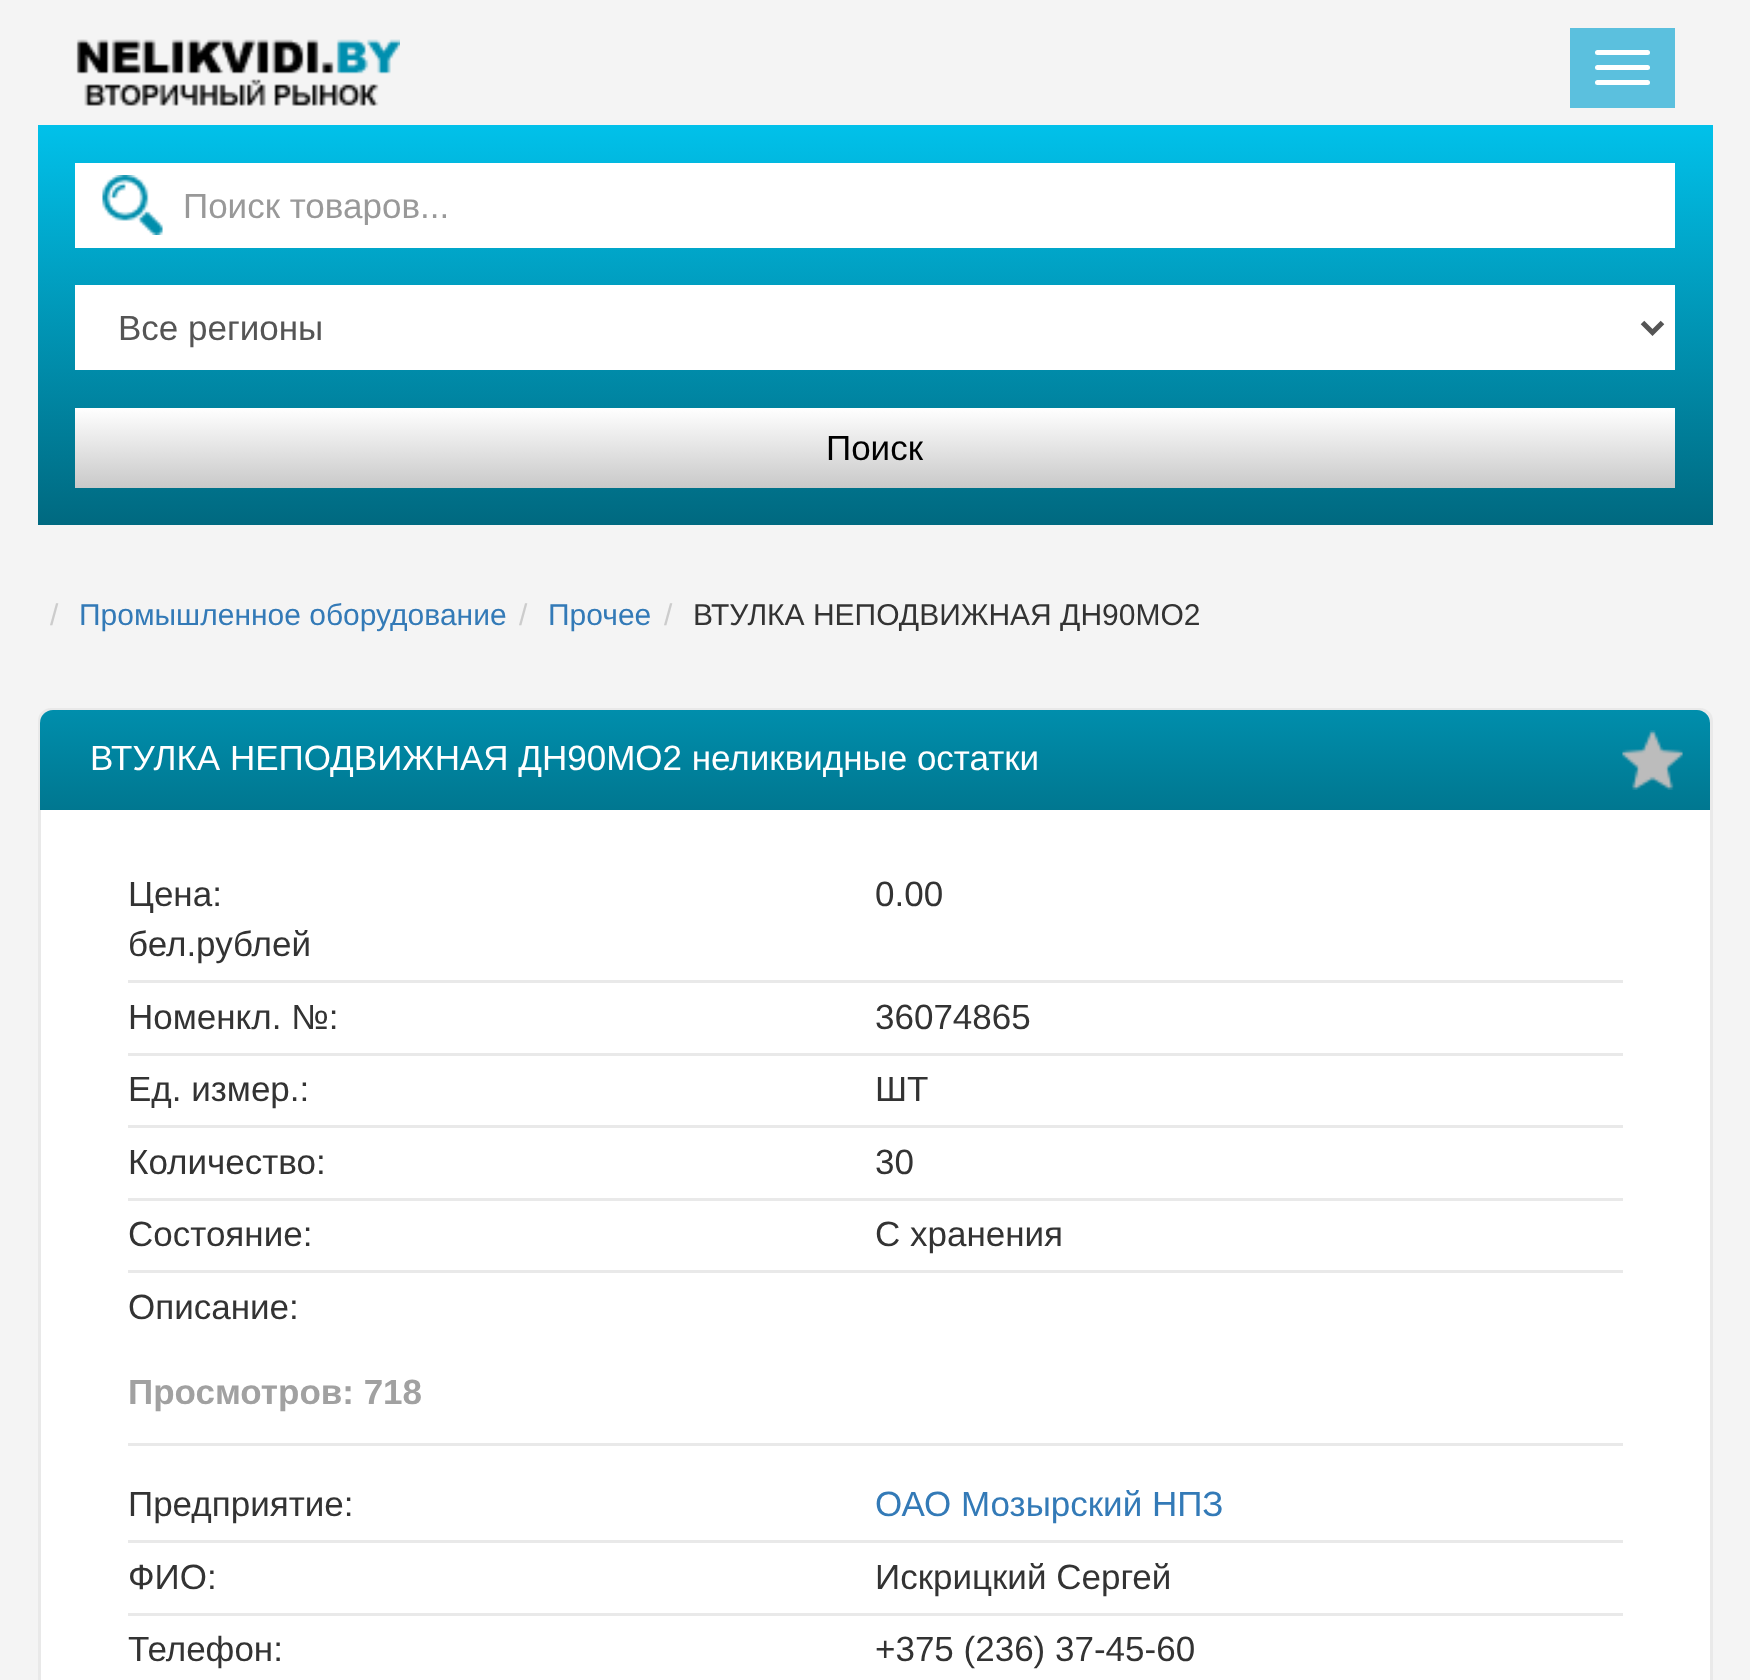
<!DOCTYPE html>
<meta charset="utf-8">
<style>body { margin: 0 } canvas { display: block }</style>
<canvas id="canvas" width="1750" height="1680"></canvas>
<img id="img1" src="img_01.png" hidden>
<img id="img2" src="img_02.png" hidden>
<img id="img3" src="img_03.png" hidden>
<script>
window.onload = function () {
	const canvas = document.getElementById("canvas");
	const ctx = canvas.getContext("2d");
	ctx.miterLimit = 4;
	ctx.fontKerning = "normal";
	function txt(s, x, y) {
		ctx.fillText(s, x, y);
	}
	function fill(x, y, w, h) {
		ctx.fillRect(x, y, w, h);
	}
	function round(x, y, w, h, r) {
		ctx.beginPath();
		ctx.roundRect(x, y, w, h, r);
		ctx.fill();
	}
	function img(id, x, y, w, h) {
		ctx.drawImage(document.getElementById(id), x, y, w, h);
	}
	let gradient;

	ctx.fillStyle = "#F4F4F4";
	fill(0, 0, 1750, 1680);
	img("img1", 76, 39, 324, 67);
	ctx.fillStyle = "#5BC0DE";
	fill(1570, 28, 105, 80);
	ctx.fillStyle = "#FFFFFF";
	round(1595, 50, 55, 5, 2.5);
	round(1595, 65, 55, 5, 2.5);
	round(1595, 80, 55, 5, 2.5);
	gradient = ctx.createLinearGradient(875, 125, 875, 525);
	gradient.addColorStop(0, "#01C1EA");
	gradient.addColorStop(1, "#006980");
	ctx.fillStyle = gradient;
	fill(38, 125, 1675, 400);
	ctx.fillStyle = "#FFFFFF";
	fill(75, 163, 1600, 85);
	img("img2", 102, 175, 61, 60);
	fill(75, 285, 1600, 85);
	ctx.beginPath();
	ctx.moveTo(1642.5, 322.5);
	ctx.lineTo(1652.5, 332.5);
	ctx.lineTo(1662.5, 322.5);
	ctx.strokeStyle = "#555555";
	ctx.lineWidth = 5;
	ctx.stroke();
	gradient = ctx.createLinearGradient(875, 488, 875, 408);
	gradient.addColorStop(0, "#C9C9C9");
	gradient.addColorStop(1, "#FFFFFF");
	ctx.fillStyle = gradient;
	fill(75, 408, 1600, 80);
	ctx.fillStyle = "#FFFFFF";
	ctx.beginPath();
	ctx.roundRect(39.5, 709.5, 1672, 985, 11.5);
	ctx.fill();
	ctx.strokeStyle = "#E9E9E9";
	ctx.lineWidth = 3;
	ctx.stroke();
	gradient = ctx.createLinearGradient(875, 710, 875, 810);
	gradient.addColorStop(0, "#008EAC");
	gradient.addColorStop(1, "#007790");
	ctx.fillStyle = gradient;
	ctx.beginPath();
	ctx.roundRect(40, 710, 1670, 100, [13, 13, 0, 0]);
	ctx.fill();
	img("img3", 1622, 730, 61, 60);
	ctx.fillStyle = "#E9E9E9";
	fill(128, 980, 1495, 3);
	fill(128, 1053, 1495, 3);
	fill(128, 1125, 1495, 3);
	fill(128, 1198, 1495, 3);
	fill(128, 1270, 1495, 3);
	fill(128, 1443, 1495, 3);
	fill(128, 1540, 1495, 3);
	fill(128, 1613, 1495, 3);
	ctx.save();
	ctx.beginPath();
	ctx.rect(183, 185, 1460, 40);
	ctx.clip();
	ctx.font = "35px Liberation Sans";
	ctx.fillStyle = "#999999";
	txt("Поиск товаров...", 183, 218);
	ctx.restore();
	ctx.font = "35px Liberation Sans";
	ctx.fillStyle = "#555555";
	txt("Все регионы", 118, 340);
	ctx.fillStyle = "#000000";
	txt("Поиск", 826, 460);
	ctx.font = "30px Liberation Sans";
	ctx.fillStyle = "#CCCCCC";
	txt("/", 50, 625);
	ctx.fillStyle = "#337AB7";
	txt("Промышленное оборудование", 79, 625);
	ctx.fillStyle = "#CCCCCC";
	txt("/", 519, 625);
	ctx.fillStyle = "#337AB7";
	txt("Прочее", 548, 625);
	ctx.fillStyle = "#CCCCCC";
	txt("/", 664, 625);
	ctx.fillStyle = "#333333";
	txt("ВТУЛКА НЕПОДВИЖНАЯ ДН90МО2", 693, 625);
	ctx.font = "35px Liberation Sans";
	ctx.fillStyle = "#FFFFFF";
	txt("ВТУЛКА НЕПОДВИЖНАЯ ДН90МО2 неликвидные остатки", 90, 770);
	ctx.fillStyle = "#333333";
	txt("Цена:", 128, 906);
	txt("0.00", 875, 906);
	txt("бел.рублей", 128, 956);
	txt("Номенкл. №:", 128, 1029);
	txt("36074865", 875, 1029);
	txt("Ед. измер.:", 128, 1101);
	txt("ШТ", 875, 1101);
	txt("Количество:", 128, 1174);
	txt("30", 875, 1174);
	txt("Состояние:", 128, 1246);
	txt("С хранения", 875, 1246);
	txt("Описание:", 128, 1319);
	ctx.font = "bold 35px Liberation Sans";
	ctx.fillStyle = "#A1A1A1";
	txt("Просмотров: 718", 128, 1404);
	ctx.font = "35px Liberation Sans";
	ctx.fillStyle = "#333333";
	txt("Предприятие:", 128, 1516);
	ctx.fillStyle = "#337AB7";
	txt("ОАО Мозырский НПЗ", 875, 1516);
	ctx.fillStyle = "#333333";
	txt("ФИО:", 128, 1589);
	txt("Искрицкий Сергей", 875, 1589);
	txt("Телефон:", 128, 1661);
	txt("+375 (236) 37-45-60", 875, 1661);
};
</script>
